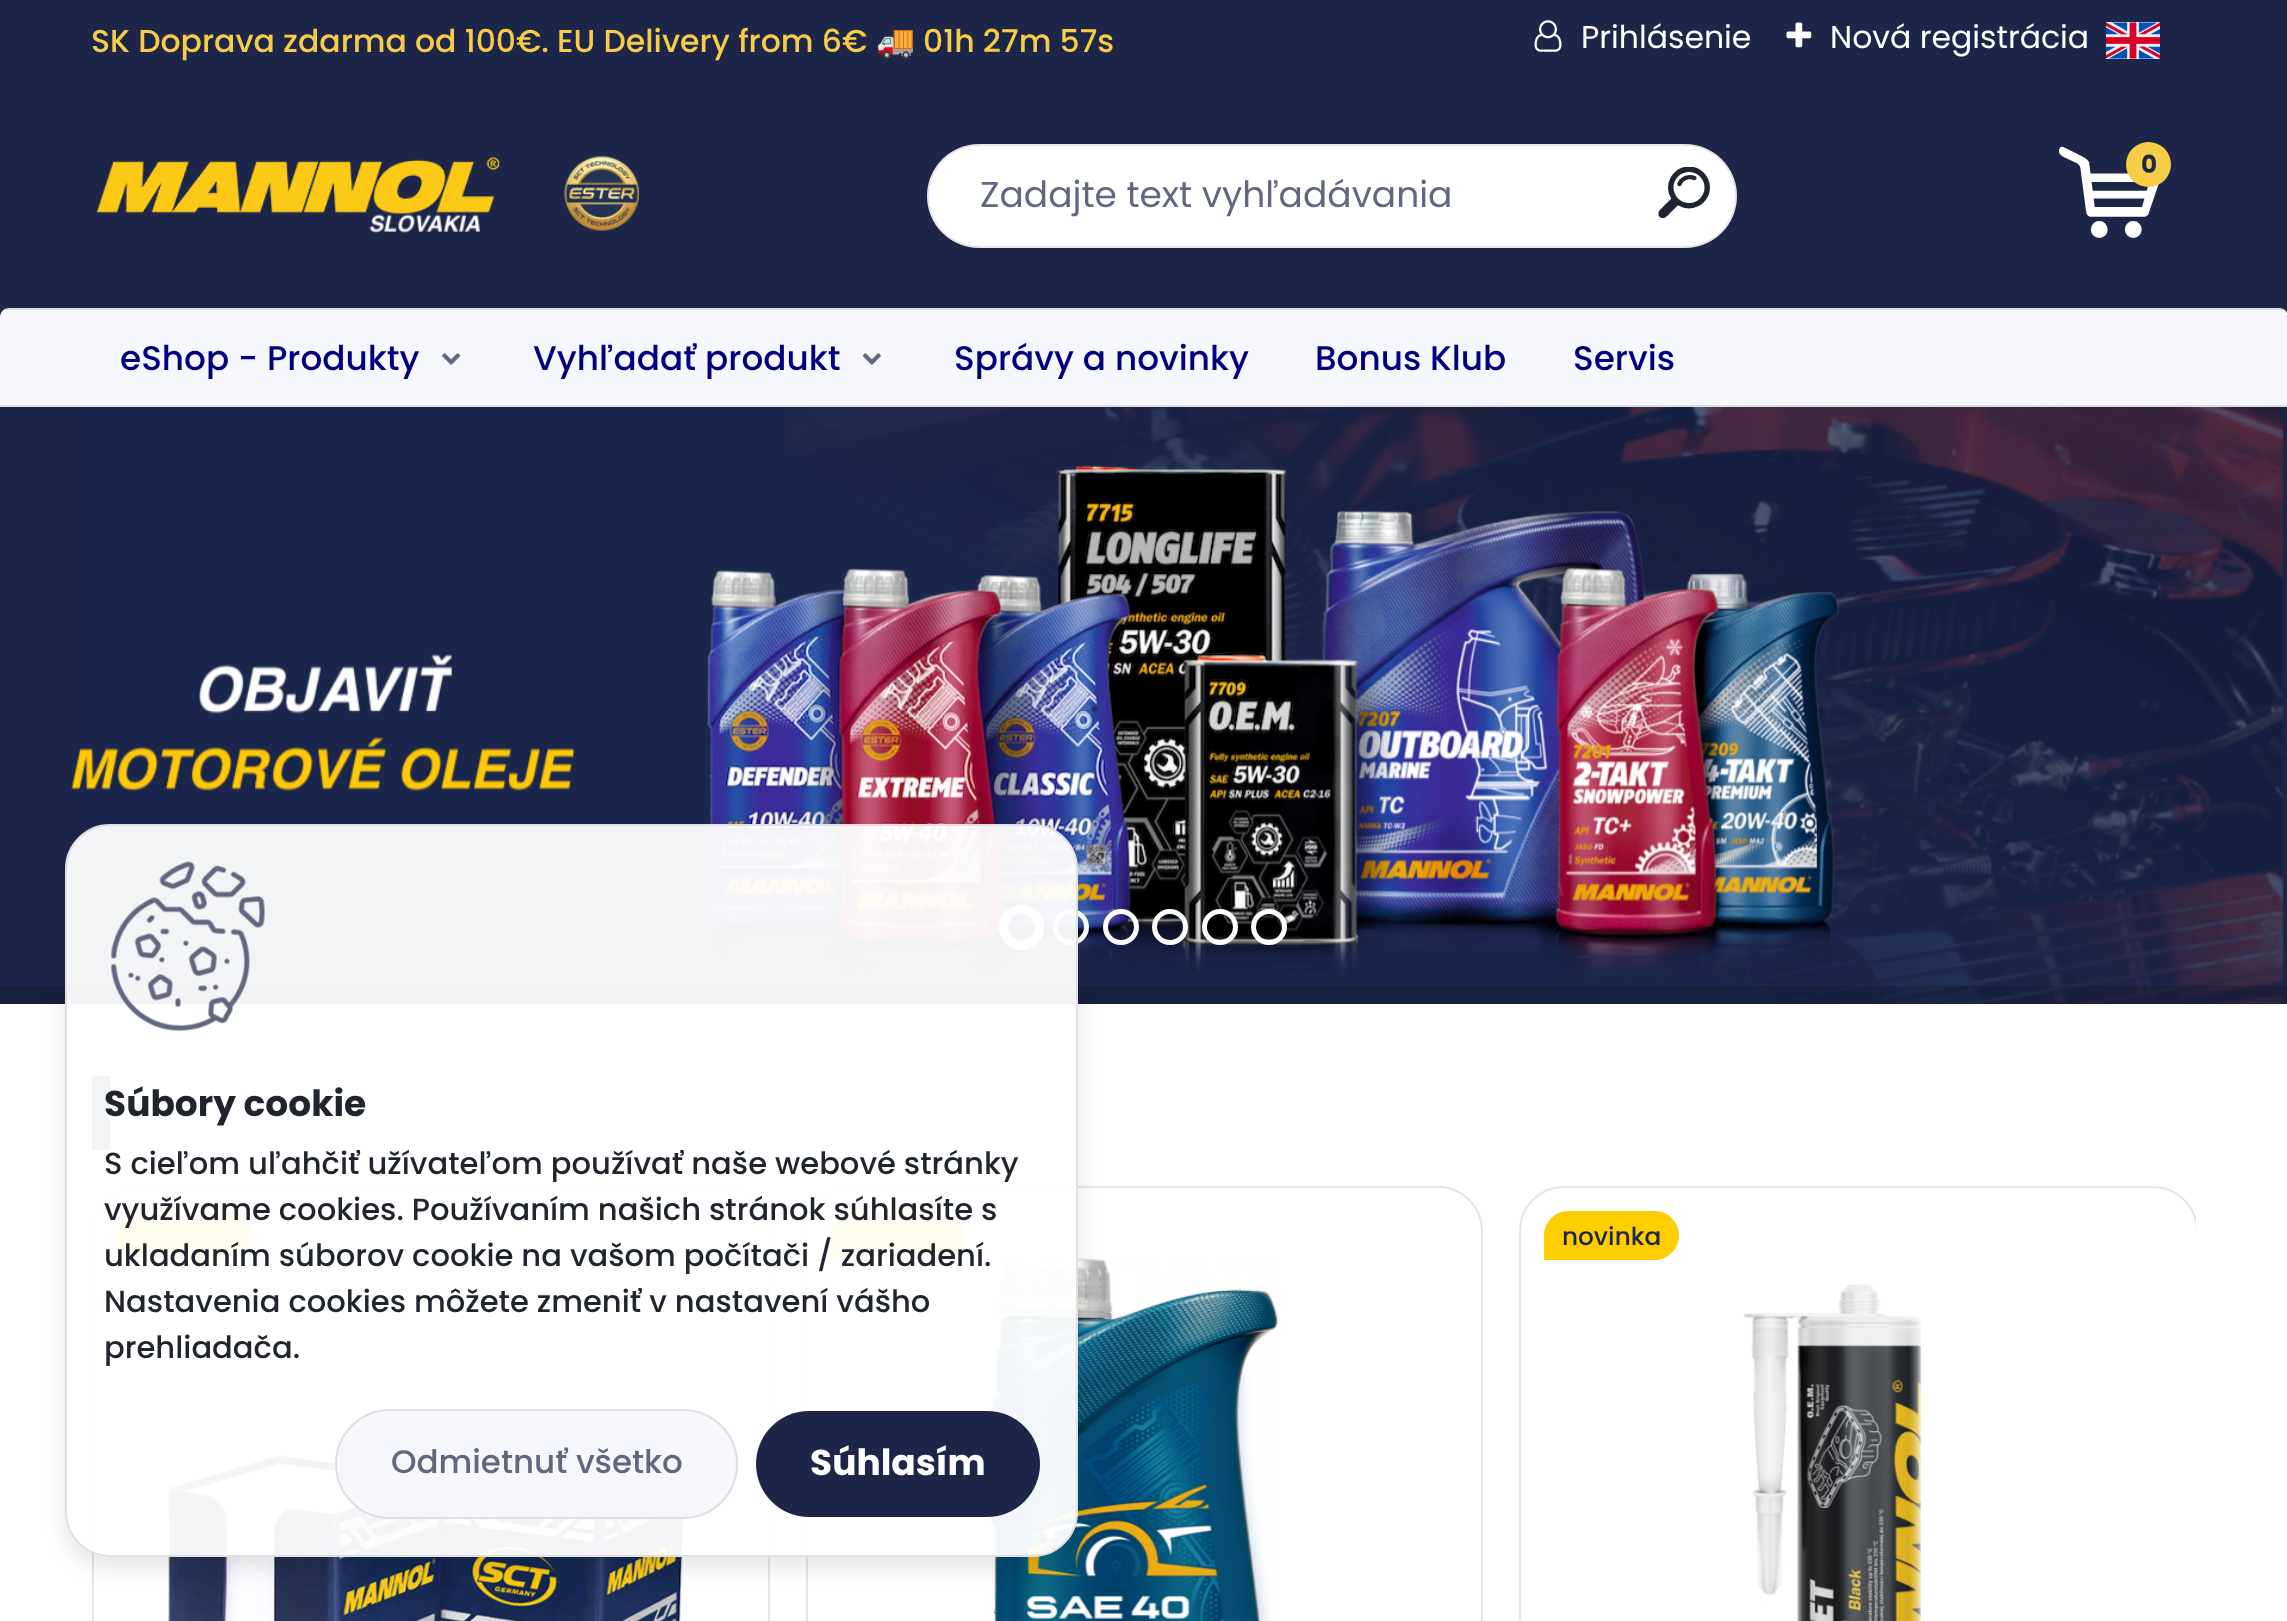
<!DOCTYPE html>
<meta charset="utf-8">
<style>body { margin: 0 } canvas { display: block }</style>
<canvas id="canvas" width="2287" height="1621"></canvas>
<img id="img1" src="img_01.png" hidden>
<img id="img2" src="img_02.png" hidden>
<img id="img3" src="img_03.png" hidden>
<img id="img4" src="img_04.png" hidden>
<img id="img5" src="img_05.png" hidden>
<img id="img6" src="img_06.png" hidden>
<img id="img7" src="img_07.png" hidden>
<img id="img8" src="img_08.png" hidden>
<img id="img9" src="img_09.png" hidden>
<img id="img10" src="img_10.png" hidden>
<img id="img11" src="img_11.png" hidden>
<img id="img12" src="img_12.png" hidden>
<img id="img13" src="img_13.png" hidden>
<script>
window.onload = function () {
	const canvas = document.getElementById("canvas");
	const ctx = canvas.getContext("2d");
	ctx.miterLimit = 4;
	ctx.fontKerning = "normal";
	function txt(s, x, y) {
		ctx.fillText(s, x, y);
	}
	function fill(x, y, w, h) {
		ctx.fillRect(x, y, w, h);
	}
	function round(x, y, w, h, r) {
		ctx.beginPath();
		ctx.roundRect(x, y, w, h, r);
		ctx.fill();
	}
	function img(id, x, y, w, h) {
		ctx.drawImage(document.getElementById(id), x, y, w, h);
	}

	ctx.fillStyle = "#FFFFFF";
	fill(0, 0, 2287, 1621);
	ctx.fillStyle = "#1D2649";
	fill(0, 0, 2287, 1004);
	img("img1", 1534, 20, 28, 32);
	img("img2", 1786, 22, 26, 26);
	img("img3", 2106, 22, 54, 37);
	img("img4", 96, 156, 544, 77);
	ctx.fillStyle = "#FFFFFF";
	round(927, 144, 810, 104, 52);
	ctx.beginPath();
	ctx.roundRect(928, 145, 808, 102, 51);
	ctx.strokeStyle = "rgba(0, 0, 0, 0.1)";
	ctx.lineWidth = 2;
	ctx.stroke();
	img("img5", 1658, 167, 52, 51);
	img("img6", 2059, 146, 100, 92);
	ctx.fillStyle = "#F7CC46";
	ctx.beginPath();
	ctx.arc(2148.5, 164.5, 22.5, 0, Math.PI * 2);
	ctx.fill();
	ctx.fillStyle = "#F6F7FC";
	ctx.beginPath();
	ctx.moveTo(9, 308);
	ctx.lineTo(2279, 308);
	ctx.bezierCurveTo(2284, 308, 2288, 312, 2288, 317);
	ctx.lineTo(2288, 407);
	ctx.lineTo(0, 407);
	ctx.lineTo(0, 317);
	ctx.bezierCurveTo(0, 312, 4, 308, 9, 308);
	ctx.closePath();
	ctx.fill();
	ctx.fillStyle = "rgba(0, 0, 0, 0.1)";
	fill(5, 308, 2279, 2);
	ctx.fillStyle = "#DDDEE3";
	fill(0, 405, 2287, 2);
	img("img7", 442, 353, 19, 12);
	img("img8", 862, 353, 19, 12);
	img("img9", 71, 407, 2216, 597);
	ctx.beginPath();
	ctx.arc(1021.5, 927.5, 18, 0, Math.PI * 2);
	ctx.strokeStyle = "#FFFFFF";
	ctx.lineWidth = 9;
	ctx.stroke();
	ctx.save();
	ctx.beginPath();
	ctx.moveTo(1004, 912);
	ctx.lineTo(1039, 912);
	ctx.lineTo(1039, 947);
	ctx.lineTo(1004, 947);
	ctx.closePath();
	ctx.moveTo(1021.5, 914);
	ctx.bezierCurveTo(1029, 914, 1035, 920, 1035, 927.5);
	ctx.bezierCurveTo(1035, 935, 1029, 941, 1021.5, 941);
	ctx.bezierCurveTo(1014, 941, 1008, 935, 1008, 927.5);
	ctx.bezierCurveTo(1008, 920, 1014, 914, 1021.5, 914);
	ctx.closePath();
	ctx.clip("evenodd");
	ctx.fillStyle = "#FFFFFF";
	ctx.filter = "blur(1px)";
	ctx.beginPath();
	ctx.roundRect(1008, 916, 27, 27, 13.5);
	ctx.fill();
	ctx.filter = "none";
	ctx.restore();
	ctx.beginPath();
	ctx.arc(1071, 927, 15.5, 0, Math.PI * 2);
	ctx.lineWidth = 5;
	ctx.stroke();
	ctx.save();
	ctx.beginPath();
	ctx.moveTo(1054, 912);
	ctx.lineTo(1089, 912);
	ctx.lineTo(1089, 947);
	ctx.lineTo(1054, 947);
	ctx.closePath();
	ctx.moveTo(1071.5, 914);
	ctx.bezierCurveTo(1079, 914, 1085, 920, 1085, 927.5);
	ctx.bezierCurveTo(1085, 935, 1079, 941, 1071.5, 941);
	ctx.bezierCurveTo(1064, 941, 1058, 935, 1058, 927.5);
	ctx.bezierCurveTo(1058, 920, 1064, 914, 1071.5, 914);
	ctx.closePath();
	ctx.clip("evenodd");
	ctx.fillStyle = "#FFFFFF";
	ctx.filter = "blur(1px)";
	ctx.beginPath();
	ctx.roundRect(1058, 916, 27, 27, 13.5);
	ctx.fill();
	ctx.filter = "none";
	ctx.restore();
	ctx.beginPath();
	ctx.arc(1121, 927, 15.5, 0, Math.PI * 2);
	ctx.stroke();
	ctx.save();
	ctx.beginPath();
	ctx.moveTo(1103, 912);
	ctx.lineTo(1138, 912);
	ctx.lineTo(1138, 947);
	ctx.lineTo(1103, 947);
	ctx.closePath();
	ctx.moveTo(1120.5, 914);
	ctx.bezierCurveTo(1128, 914, 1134, 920, 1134, 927.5);
	ctx.bezierCurveTo(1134, 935, 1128, 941, 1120.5, 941);
	ctx.bezierCurveTo(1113, 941, 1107, 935, 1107, 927.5);
	ctx.bezierCurveTo(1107, 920, 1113, 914, 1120.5, 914);
	ctx.closePath();
	ctx.clip("evenodd");
	ctx.fillStyle = "#FFFFFF";
	ctx.filter = "blur(1px)";
	ctx.beginPath();
	ctx.roundRect(1107, 916, 27, 27, 13.5);
	ctx.fill();
	ctx.filter = "none";
	ctx.restore();
	ctx.beginPath();
	ctx.arc(1170, 927, 15.5, 0, Math.PI * 2);
	ctx.stroke();
	ctx.save();
	ctx.beginPath();
	ctx.moveTo(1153, 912);
	ctx.lineTo(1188, 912);
	ctx.lineTo(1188, 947);
	ctx.lineTo(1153, 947);
	ctx.closePath();
	ctx.moveTo(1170.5, 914);
	ctx.bezierCurveTo(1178, 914, 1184, 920, 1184, 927.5);
	ctx.bezierCurveTo(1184, 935, 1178, 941, 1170.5, 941);
	ctx.bezierCurveTo(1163, 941, 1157, 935, 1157, 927.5);
	ctx.bezierCurveTo(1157, 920, 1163, 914, 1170.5, 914);
	ctx.closePath();
	ctx.clip("evenodd");
	ctx.fillStyle = "#FFFFFF";
	ctx.filter = "blur(1px)";
	ctx.beginPath();
	ctx.roundRect(1157, 916, 27, 27, 13.5);
	ctx.fill();
	ctx.filter = "none";
	ctx.restore();
	ctx.beginPath();
	ctx.arc(1220, 927, 15.5, 0, Math.PI * 2);
	ctx.stroke();
	ctx.save();
	ctx.beginPath();
	ctx.moveTo(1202, 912);
	ctx.lineTo(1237, 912);
	ctx.lineTo(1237, 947);
	ctx.lineTo(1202, 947);
	ctx.closePath();
	ctx.moveTo(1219.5, 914);
	ctx.bezierCurveTo(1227, 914, 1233, 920, 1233, 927.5);
	ctx.bezierCurveTo(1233, 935, 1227, 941, 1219.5, 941);
	ctx.bezierCurveTo(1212, 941, 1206, 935, 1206, 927.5);
	ctx.bezierCurveTo(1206, 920, 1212, 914, 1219.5, 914);
	ctx.closePath();
	ctx.clip("evenodd");
	ctx.fillStyle = "#FFFFFF";
	ctx.filter = "blur(1px)";
	ctx.beginPath();
	ctx.roundRect(1206, 916, 27, 27, 13.5);
	ctx.fill();
	ctx.filter = "none";
	ctx.restore();
	ctx.beginPath();
	ctx.arc(1269, 927, 15.5, 0, Math.PI * 2);
	ctx.stroke();
	ctx.save();
	ctx.beginPath();
	ctx.moveTo(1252, 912);
	ctx.lineTo(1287, 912);
	ctx.lineTo(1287, 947);
	ctx.lineTo(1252, 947);
	ctx.closePath();
	ctx.moveTo(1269.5, 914);
	ctx.bezierCurveTo(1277, 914, 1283, 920, 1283, 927.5);
	ctx.bezierCurveTo(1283, 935, 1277, 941, 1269.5, 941);
	ctx.bezierCurveTo(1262, 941, 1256, 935, 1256, 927.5);
	ctx.bezierCurveTo(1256, 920, 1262, 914, 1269.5, 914);
	ctx.closePath();
	ctx.clip("evenodd");
	ctx.fillStyle = "#FFFFFF";
	ctx.filter = "blur(1px)";
	ctx.beginPath();
	ctx.roundRect(1256, 916, 27, 27, 13.5);
	ctx.fill();
	ctx.filter = "none";
	ctx.restore();
	ctx.fillStyle = "rgba(0, 0, 0, 0.15)";
	fill(0, 986, 2287, 18);
	ctx.fillStyle = "#1D2649";
	fill(92, 1076, 18, 74);
	ctx.beginPath();
	ctx.roundRect(93, 1187, 676, 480, 44);
	ctx.strokeStyle = "#E6E6E6";
	ctx.lineWidth = 2;
	ctx.stroke();
	ctx.fillStyle = "#FFCE00";
	ctx.beginPath();
	ctx.roundRect(117, 1211, 135, 49, [24.5, 24.5, 24.5, 0]);
	ctx.fill();
	img("img10", 168, 1445, 518, 176);
	ctx.beginPath();
	ctx.roundRect(807, 1187, 675, 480, 44);
	ctx.stroke();
	ctx.beginPath();
	ctx.roundRect(830, 1211, 135, 49, [24.5, 24.5, 24.5, 0]);
	ctx.fill();
	img("img11", 990, 1256, 289, 365);
	ctx.save();
	ctx.beginPath();
	ctx.rect(92, 1186, 2104, 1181);
	ctx.clip();
	ctx.beginPath();
	ctx.roundRect(1520, 1187, 677, 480, 44);
	ctx.stroke();
	ctx.restore();
	ctx.beginPath();
	ctx.roundRect(1544, 1211, 135, 49, [24.5, 24.5, 24.5, 0]);
	ctx.fill();
	img("img12", 1743, 1284, 179, 337);
	ctx.save();
	ctx.beginPath();
	ctx.moveTo(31, 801);
	ctx.lineTo(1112, 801);
	ctx.lineTo(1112, 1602);
	ctx.lineTo(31, 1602);
	ctx.closePath();
	ctx.moveTo(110, 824);
	ctx.lineTo(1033, 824);
	ctx.bezierCurveTo(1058, 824, 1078, 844, 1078, 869);
	ctx.lineTo(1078, 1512);
	ctx.bezierCurveTo(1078, 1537, 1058, 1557, 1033, 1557);
	ctx.lineTo(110, 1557);
	ctx.bezierCurveTo(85, 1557, 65, 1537, 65, 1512);
	ctx.lineTo(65, 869);
	ctx.bezierCurveTo(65, 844, 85, 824, 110, 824);
	ctx.closePath();
	ctx.clip("evenodd");
	ctx.fillStyle = "rgba(0, 0, 0, 0.1)";
	ctx.filter = "blur(11px)";
	ctx.beginPath();
	ctx.roundRect(65, 835, 1013, 733, 45);
	ctx.fill();
	ctx.filter = "none";
	ctx.restore();
	ctx.fillStyle = "rgba(255, 255, 255, 0.95)";
	ctx.beginPath();
	ctx.roundRect(66, 825, 1011, 731, 44);
	ctx.fill();
	ctx.strokeStyle = "#E0E0E0";
	ctx.stroke();
	img("img13", 110, 861, 155, 170);
	ctx.fillStyle = "#F6F7FC";
	round(335, 1409, 403, 110, 55);
	ctx.beginPath();
	ctx.roundRect(336, 1410, 401, 108, 54);
	ctx.strokeStyle = "rgba(0, 0, 0, 0.1)";
	ctx.stroke();
	ctx.fillStyle = "#1D2649";
	round(756, 1411, 284, 106, 53);
	ctx.font = "500 31.5px Poppins";
	ctx.fillStyle = "#F7CC46";
	txt("SK Doprava zdarma od 100€. EU Delivery from 6€", 91, 52);
	ctx.font = "31.5px Noto Color Emoji";
	txt("🚚", 876, 52);
	ctx.font = "500 31.5px Poppins";
	txt("01h 27m 57s", 923, 52);
	ctx.font = "31.5px Poppins";
	ctx.fillStyle = "#FFFFFF";
	txt("Prihlásenie", 1581, 48);
	txt("Nová registrácia", 1830, 48);
	ctx.font = "36px Poppins";
	ctx.fillStyle = "#626780";
	txt("Zadajte text vyhľadávania", 980, 207);
	ctx.font = "bold 24.75px Poppins";
	ctx.fillStyle = "#1D2649";
	txt("0", 2141, 173);
	ctx.font = "500 34.25px Poppins";
	ctx.fillStyle = "#000080";
	txt("eShop - Produkty", 120, 370);
	txt("Vyhľadať produkt", 533, 370);
	txt("Správy a novinky", 954, 370);
	txt("Bonus Klub", 1315, 370);
	txt("Servis", 1573, 370);
	ctx.font = "500 24.75px Poppins";
	ctx.fillStyle = "#1D2649";
	txt("novinka", 1562, 1245);
	ctx.font = "bold 36px Poppins";
	ctx.fillStyle = "#1F242D";
	txt("Súbory cookie", 104, 1116);
	ctx.font = "500 30.6px Poppins";
	txt("S cieľom uľahčiť užívateľom používať naše webové stránky", 104, 1174);
	txt("využívame cookies. Používaním našich stránok súhlasíte s", 104, 1220);
	txt("ukladaním súborov cookie na vašom počítači / zariadení.", 104, 1266);
	txt("Nastavenia cookies môžete zmeniť v nastavení vášho", 104, 1312);
	txt("prehliadača.", 104, 1358);
	ctx.font = "500 32.5px Poppins";
	ctx.fillStyle = "#626780";
	txt("Odmietnuť všetko", 391, 1473);
	ctx.font = "bold 36px Poppins";
	ctx.fillStyle = "#FFFFFF";
	txt("Súhlasím", 810, 1475);
};
</script>
